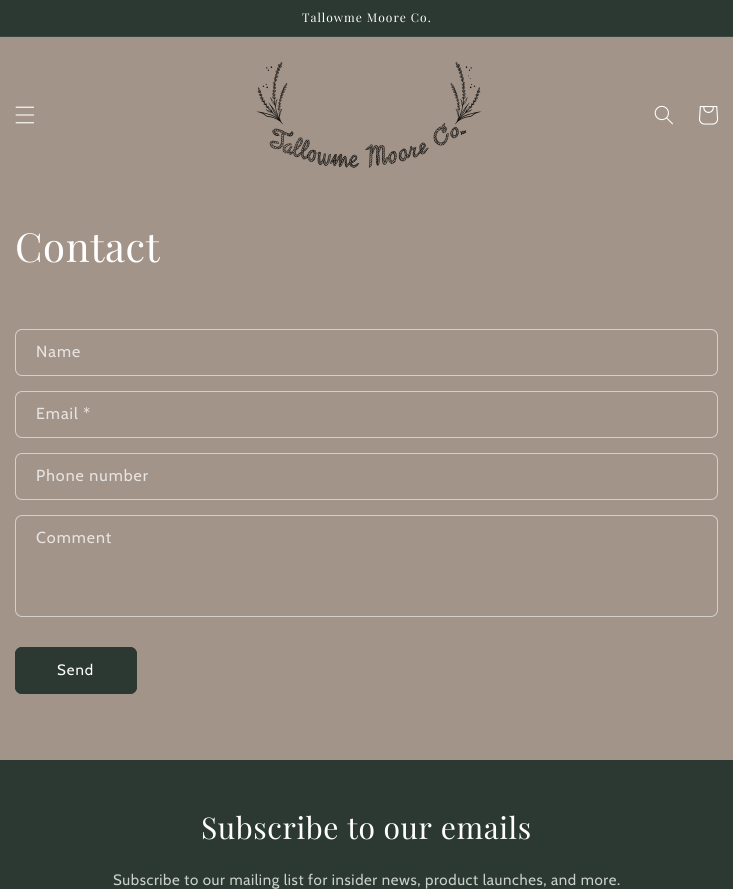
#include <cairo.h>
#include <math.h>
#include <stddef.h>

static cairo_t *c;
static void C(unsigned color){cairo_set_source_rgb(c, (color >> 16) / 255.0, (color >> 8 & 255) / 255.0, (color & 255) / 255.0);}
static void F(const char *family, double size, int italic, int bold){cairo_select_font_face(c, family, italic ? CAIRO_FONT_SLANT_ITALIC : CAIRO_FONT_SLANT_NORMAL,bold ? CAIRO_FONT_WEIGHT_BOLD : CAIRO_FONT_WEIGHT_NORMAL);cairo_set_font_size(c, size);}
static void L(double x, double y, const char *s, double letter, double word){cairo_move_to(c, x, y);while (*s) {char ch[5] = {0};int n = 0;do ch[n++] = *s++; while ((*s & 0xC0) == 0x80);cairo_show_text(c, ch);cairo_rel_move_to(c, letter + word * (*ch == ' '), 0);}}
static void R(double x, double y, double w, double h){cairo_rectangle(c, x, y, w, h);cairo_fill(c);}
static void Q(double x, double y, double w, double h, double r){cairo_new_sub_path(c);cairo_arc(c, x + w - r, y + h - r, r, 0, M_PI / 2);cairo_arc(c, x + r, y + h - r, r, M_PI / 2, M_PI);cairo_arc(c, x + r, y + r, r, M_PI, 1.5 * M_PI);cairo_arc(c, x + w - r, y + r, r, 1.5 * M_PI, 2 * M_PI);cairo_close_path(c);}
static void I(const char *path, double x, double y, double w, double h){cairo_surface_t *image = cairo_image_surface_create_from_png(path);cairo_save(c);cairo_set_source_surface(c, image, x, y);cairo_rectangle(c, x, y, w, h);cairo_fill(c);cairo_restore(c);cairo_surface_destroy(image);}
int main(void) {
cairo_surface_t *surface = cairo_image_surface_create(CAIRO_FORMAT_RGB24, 733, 889);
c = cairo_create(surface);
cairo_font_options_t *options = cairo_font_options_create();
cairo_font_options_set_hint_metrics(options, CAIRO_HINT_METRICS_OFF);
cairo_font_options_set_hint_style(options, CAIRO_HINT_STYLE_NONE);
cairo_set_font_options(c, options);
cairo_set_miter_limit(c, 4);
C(0xa29489);
cairo_paint(c);
C(0x2b3932);
R(0,0,733,36);
C(0x3c4942);
R(0,36,733,1);
F("Playfair Display",12,0,0);
C(0xffffff);
L(302,22,"Tallowme Moore Co.",1,0);
I("1.png",15,106,20,18);
I("2.png",256,62,226,106);
I("3.png",654,105,19,20);
I("4.png",699,106,20,19);
F("Playfair Display",40,0,0);
L(15,262,"Contact",.6,0);
Q(15.5,329.5,702,46,6.5);
C(0xd5cfca);
cairo_set_line_width(c,1);
cairo_stroke(c);
F("Cabin",16,0,0);
C(0xe8e4e2);
L(36,357,"Name",1,0);
Q(15.5,391.5,702,46,6.5);
C(0xd5cfca);
cairo_stroke(c);
C(0xe8e4e2);
L(36,419,"Email *",1,0);
Q(15.5,453.5,702,46,6.5);
C(0xd5cfca);
cairo_stroke(c);
C(0xe8e4e2);
L(36,481,"Phone number",1,0);
Q(15.5,515.5,702,101,6.5);
C(0xd5cfca);
cairo_stroke(c);
C(0xe8e4e2);
L(36,543,"Comment",1,0);
C(0x2b3932);
Q(15,647,122,47,7);
cairo_fill(c);
Q(15.5,647.5,121,46,6.5);
cairo_stroke(c);
F("Cabin",15,0,0);
C(0xffffff);
L(57,675,"Send",1,0);
C(0x2b3932);
R(0,760,733,129);
F("Playfair Display",30,0,0);
C(0xffffff);
L(201,839,"Subscribe to our emails",.6,0);
F("Cabin",15,0,0);
C(0xcacecc);
L(113,885,"Subscribe to our mailing list for insider news, product launches, and more.",.6,0);
cairo_surface_write_to_png(surface, "o.png");
cairo_font_options_destroy(options);
cairo_destroy(c);
cairo_surface_destroy(surface);
return 0;
}
